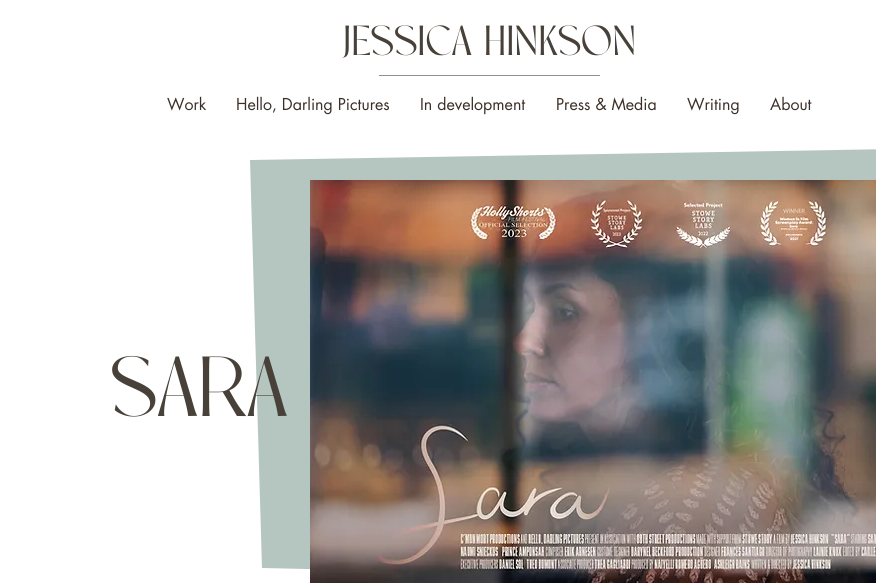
#include <cairo.h>
#include <math.h>
#include <stddef.h>

static cairo_t *c;
static void C(unsigned color){cairo_set_source_rgb(c, (color >> 16) / 255.0, (color >> 8 & 255) / 255.0, (color & 255) / 255.0);}
static void F(const char *family, double size, int italic, int bold){cairo_select_font_face(c, family, italic ? CAIRO_FONT_SLANT_ITALIC : CAIRO_FONT_SLANT_NORMAL,bold ? CAIRO_FONT_WEIGHT_BOLD : CAIRO_FONT_WEIGHT_NORMAL);cairo_set_font_size(c, size);}
static void T(double x, double y, const char *s){cairo_move_to(c, x, y);cairo_show_text(c, s);}
static void R(double x, double y, double w, double h){cairo_rectangle(c, x, y, w, h);cairo_fill(c);}
static void I(const char *path, double x, double y, double w, double h){cairo_surface_t *image = cairo_image_surface_create_from_png(path);cairo_save(c);cairo_set_source_surface(c, image, x, y);cairo_rectangle(c, x, y, w, h);cairo_fill(c);cairo_restore(c);cairo_surface_destroy(image);}
int main(void) {
cairo_surface_t *surface = cairo_image_surface_create(CAIRO_FORMAT_RGB24, 876, 583);
c = cairo_create(surface);
cairo_font_options_t *options = cairo_font_options_create();
cairo_font_options_set_hint_metrics(options, CAIRO_HINT_METRICS_OFF);
cairo_font_options_set_hint_style(options, CAIRO_HINT_STYLE_NONE);
cairo_set_font_options(c, options);
cairo_set_miter_limit(c, 4);
C(0xffffff);
cairo_paint(c);
F("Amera",42,0,0);
C(0x48413a);
T(343,55,"Jessica Hinkson");
C(0x909090);
R(379,75,221,1);
F("futura",16,0,0);
C(0x3b2f29);
T(167,110,"Work");
T(236,110,"Hello, Darling Pictures");
T(420,110,"In development");
T(556,110,"Press & Media");
T(687,110,"Writing");
T(770,110,"About");
C(0xb5c5bf);
cairo_new_path(c);
cairo_move_to(c,250,160);
cairo_line_to(c,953,148);
cairo_line_to(c,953,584);
cairo_line_to(c,262,568);
cairo_close_path(c);
cairo_fill(c);
F("Amera",85,0,0);
C(0x48413a);
T(110,416,"Sara");
I("1.png",310,180,566,403);
cairo_surface_write_to_png(surface, "o.png");
cairo_font_options_destroy(options);
cairo_destroy(c);
cairo_surface_destroy(surface);
return 0;
}
